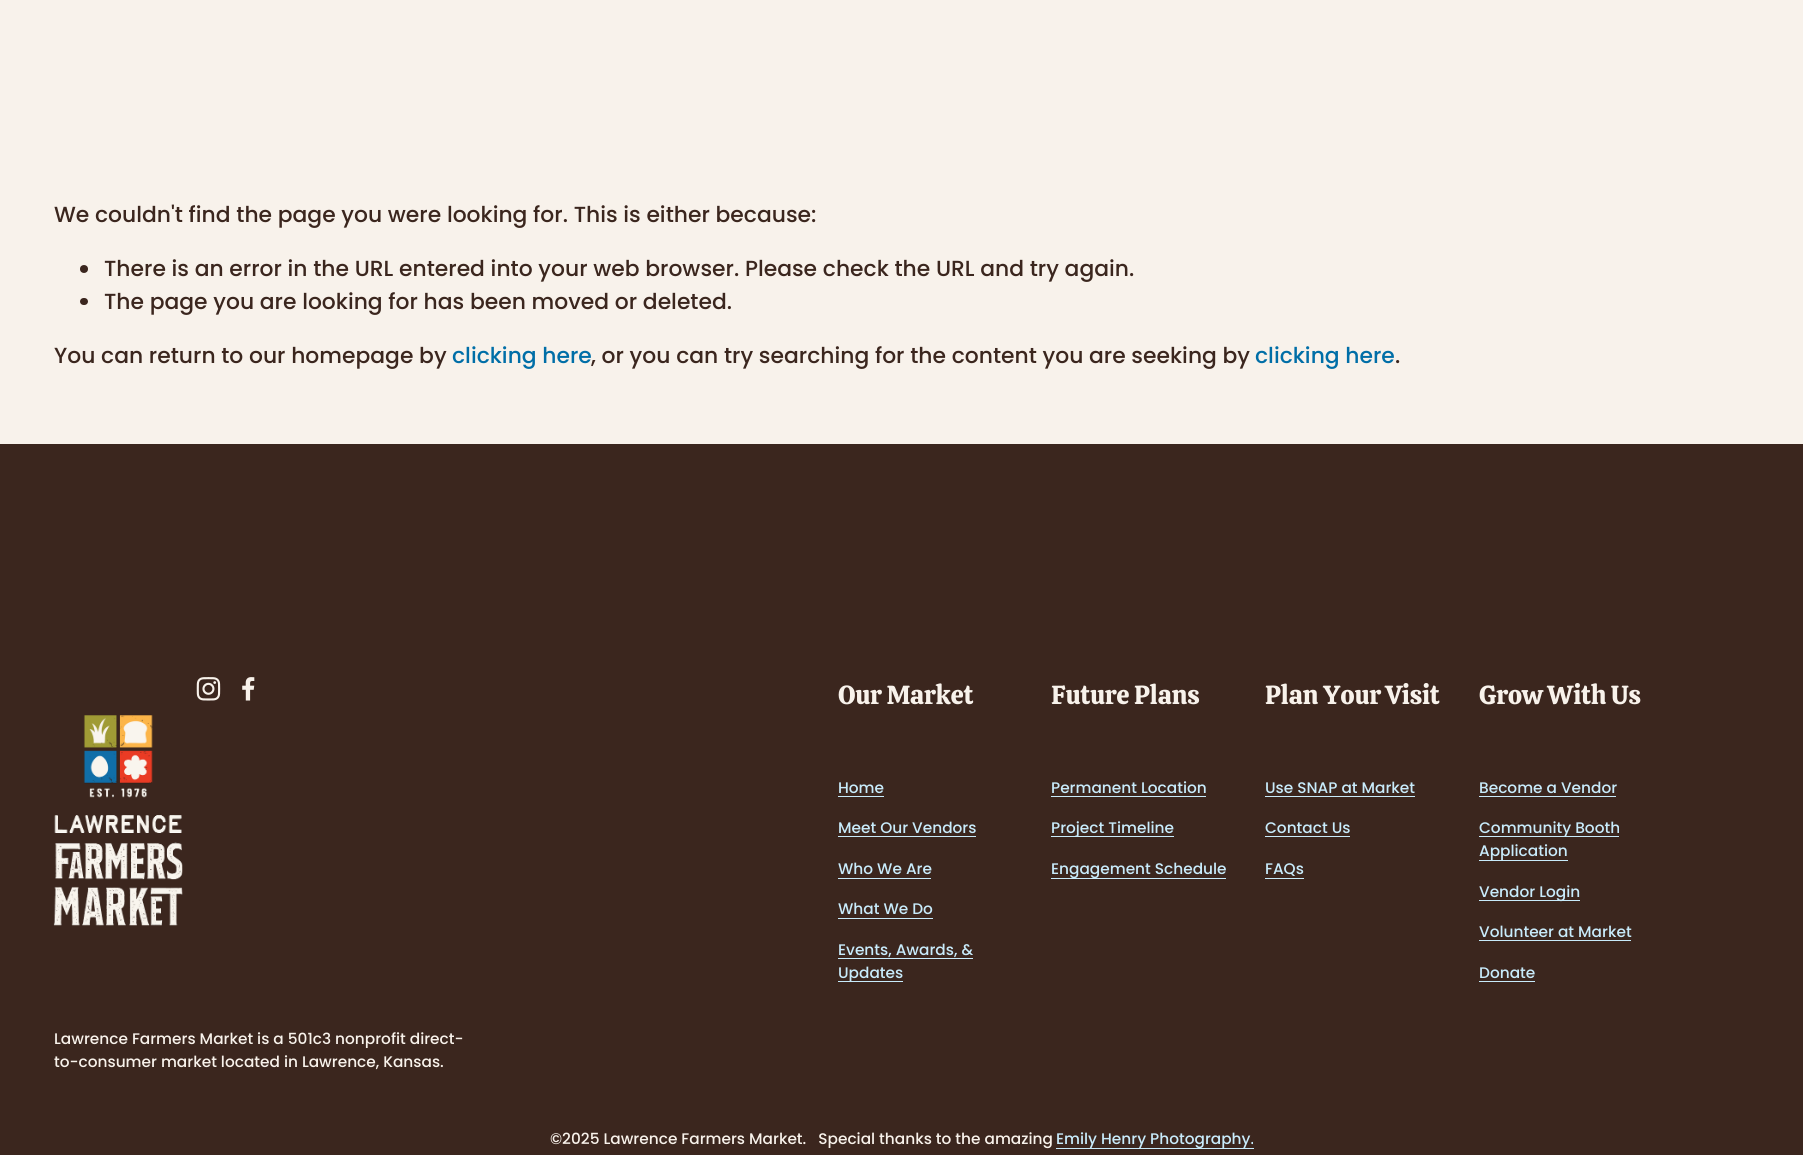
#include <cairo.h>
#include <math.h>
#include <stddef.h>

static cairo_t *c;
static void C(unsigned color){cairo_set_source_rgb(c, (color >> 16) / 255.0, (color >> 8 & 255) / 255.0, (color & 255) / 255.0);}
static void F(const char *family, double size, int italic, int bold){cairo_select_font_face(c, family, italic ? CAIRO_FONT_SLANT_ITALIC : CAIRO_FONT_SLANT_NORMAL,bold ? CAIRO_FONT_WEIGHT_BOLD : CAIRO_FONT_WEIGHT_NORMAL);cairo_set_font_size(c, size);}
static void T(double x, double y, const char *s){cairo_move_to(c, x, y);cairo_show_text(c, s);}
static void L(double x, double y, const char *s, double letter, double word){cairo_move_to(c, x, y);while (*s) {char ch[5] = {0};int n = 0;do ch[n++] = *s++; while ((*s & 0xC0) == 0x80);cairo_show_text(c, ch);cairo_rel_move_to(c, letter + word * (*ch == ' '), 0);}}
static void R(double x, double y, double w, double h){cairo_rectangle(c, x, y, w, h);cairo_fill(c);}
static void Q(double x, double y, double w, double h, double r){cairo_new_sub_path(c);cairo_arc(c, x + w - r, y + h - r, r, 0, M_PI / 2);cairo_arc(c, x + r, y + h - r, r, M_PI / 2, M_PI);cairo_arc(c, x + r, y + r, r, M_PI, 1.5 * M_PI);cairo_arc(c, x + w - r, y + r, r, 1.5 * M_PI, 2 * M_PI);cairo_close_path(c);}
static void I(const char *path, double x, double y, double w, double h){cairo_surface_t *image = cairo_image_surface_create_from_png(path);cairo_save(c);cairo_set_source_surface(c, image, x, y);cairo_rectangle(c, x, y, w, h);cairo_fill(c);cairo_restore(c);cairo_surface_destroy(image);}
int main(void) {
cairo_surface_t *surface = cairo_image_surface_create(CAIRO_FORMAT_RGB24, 1803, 1155);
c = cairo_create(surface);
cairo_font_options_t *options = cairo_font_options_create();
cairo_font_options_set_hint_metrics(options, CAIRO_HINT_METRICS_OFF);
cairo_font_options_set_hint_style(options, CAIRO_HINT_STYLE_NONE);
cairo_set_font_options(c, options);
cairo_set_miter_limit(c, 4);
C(0xf8f2eb);
cairo_paint(c);
F("Poppins Medium",21.85,0,0);
C(0x3b261e);
T(54,222,"We couldn't find the page you were looking for. This is either because:");
cairo_new_path(c);
cairo_arc(c,84,269,4,0,2 * M_PI);
cairo_fill(c);
T(104,276,"There is an error in the URL entered into your web browser. Please check the URL and try again.");
Q(80,298,8,7,3.5);
cairo_fill(c);
T(104,309,"The page you are looking for has been moved or deleted.");
T(54,363,"You can return to our homepage by");
C(0x006ea7);
T(452,363,"clicking here");
C(0x3b261e);
T(591,363,", or you can try searching for the content you are seeking by");
C(0x006ea7);
T(1255,363,"clicking here");
C(0x3b261e);
T(1395,363,".");
R(0,444,1803,711);
I("1.png",196,677,25,24);
I("2.png",242,677,13,24);
F("Calistoga",26.25,0,0);
C(0xf8f2eb);
L(838,704,"Our Market",-.25,0);
L(1051,704,"Future Plans",-.25,0);
L(1265,704,"Plan Your Visit",-.25,0);
L(1479,704,"Grow With Us",-.25,0);
I("3.png",53,715,130,211);
F("Poppins Medium",15.35,0,0);
C(0xc8ebfb);
T(838,793,"Home");
R(838,796,46,1);
T(838,833,"Meet Our Vendors");
R(838,836,138,1);
T(838,874,"Who We Are");
R(838,878,93,1);
T(838,914,"What We Do");
R(838,918,95,1);
T(838,955,"Events, Awards, &");
R(838,958,135,1);
R(838,981,65,1);
T(838,978,"Updates");
T(1051,793,"Permanent Location");
R(1051,796,155,1);
R(1051,836,123,1);
T(1051,833,"Project Timeline");
R(1051,878,175,1);
T(1051,874,"Engagement Schedule");
T(1265,793,"Use SNAP at Market");
R(1265,796,150,1);
T(1265,833,"Contact Us");
R(1265,836,85,1);
T(1265,874,"FAQs");
R(1265,878,39,1);
T(1479,793,"Become a Vendor");
R(1479,796,137,1);
R(1479,836,140,1);
T(1479,833,"Community Booth");
T(1479,856,"Application");
R(1479,860,89,1);
R(1479,900,101,1);
T(1479,897,"Vendor Login");
T(1479,937,"Volunteer at Market");
R(1479,940,152,1);
T(1479,978,"Donate");
R(1479,981,56,1);
C(0xf8f2eb);
T(54,1044,"Lawrence Farmers Market is a 501c3 nonprofit direct-");
T(54,1067,"to-consumer market located in Lawrence, Kansas.");
T(550,1144,"©2025 Lawrence Farmers Market.   Special thanks to the amazing");
C(0xc8ebfb);
R(1056,1148,198,1);
T(1056,1144,"Emily Henry Photography.");
cairo_surface_write_to_png(surface, "o.png");
cairo_font_options_destroy(options);
cairo_destroy(c);
cairo_surface_destroy(surface);
return 0;
}
